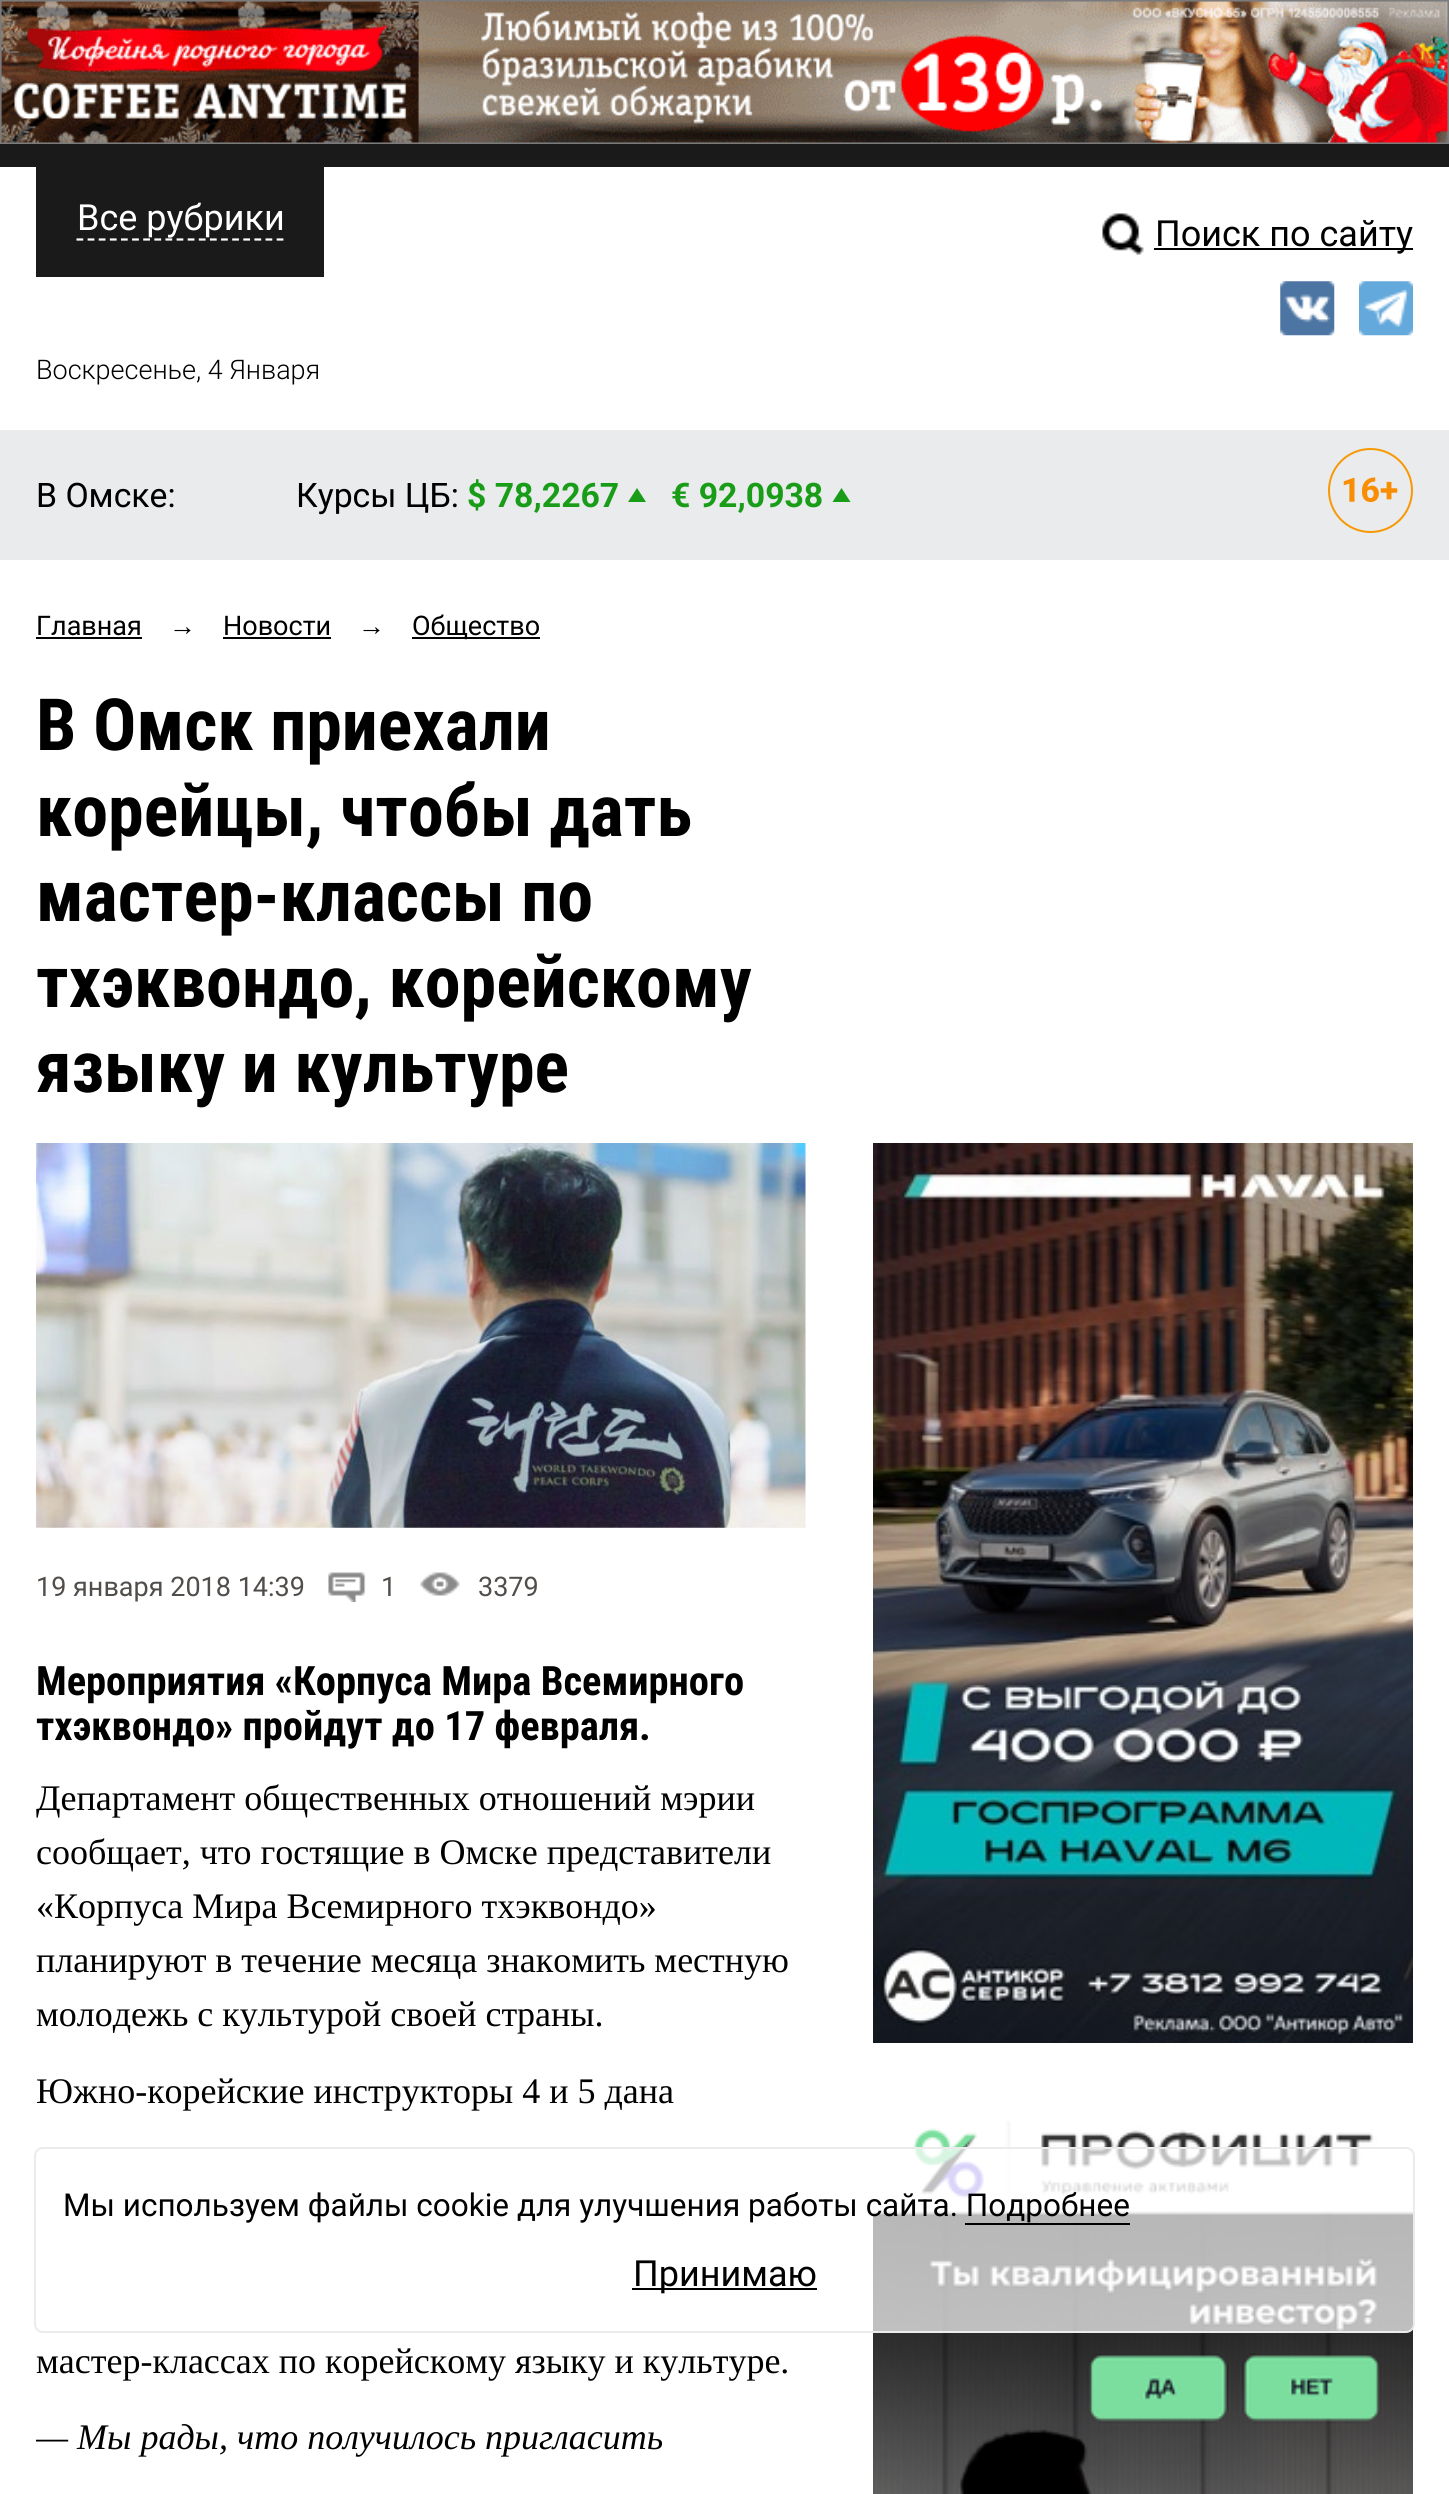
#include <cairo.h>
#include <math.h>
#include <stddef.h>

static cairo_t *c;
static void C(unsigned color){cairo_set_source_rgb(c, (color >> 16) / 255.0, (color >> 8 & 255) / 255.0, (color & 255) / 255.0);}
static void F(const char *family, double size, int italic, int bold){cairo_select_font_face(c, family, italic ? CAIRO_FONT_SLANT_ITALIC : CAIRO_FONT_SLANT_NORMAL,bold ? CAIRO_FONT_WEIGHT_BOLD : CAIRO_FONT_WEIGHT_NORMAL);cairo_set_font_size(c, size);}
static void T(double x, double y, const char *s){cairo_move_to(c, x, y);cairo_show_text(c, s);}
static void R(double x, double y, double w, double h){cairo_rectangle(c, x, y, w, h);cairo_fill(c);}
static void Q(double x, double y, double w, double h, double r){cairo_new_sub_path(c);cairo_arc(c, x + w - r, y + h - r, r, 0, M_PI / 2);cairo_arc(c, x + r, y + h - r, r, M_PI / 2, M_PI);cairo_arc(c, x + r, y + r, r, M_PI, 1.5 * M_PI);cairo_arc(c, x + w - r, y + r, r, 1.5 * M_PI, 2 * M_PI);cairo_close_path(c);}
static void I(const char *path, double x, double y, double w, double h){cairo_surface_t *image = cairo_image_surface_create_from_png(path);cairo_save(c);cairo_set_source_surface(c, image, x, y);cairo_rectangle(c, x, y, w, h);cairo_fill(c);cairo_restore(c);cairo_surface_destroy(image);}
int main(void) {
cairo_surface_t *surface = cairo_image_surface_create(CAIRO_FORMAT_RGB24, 1449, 2494);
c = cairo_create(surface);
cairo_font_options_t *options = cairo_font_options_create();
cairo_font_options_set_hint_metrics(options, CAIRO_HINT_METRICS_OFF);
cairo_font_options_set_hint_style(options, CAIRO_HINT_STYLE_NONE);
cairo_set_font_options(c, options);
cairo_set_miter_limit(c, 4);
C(0xffffff);
cairo_paint(c);
I("1.png",0,0,1449,144);
C(0x1a1a1a);
R(0,144,1449,23);
R(36,167,288,110);
F("Roboto",36,0,0);
C(0xffffff);
T(77,230,"Все рубрики");
cairo_new_path(c);
cairo_move_to(c,76.5,239.5);
cairo_line_to(c,283.5,239.5);
cairo_set_line_width(c,2.2);
cairo_set_dash(c,(double[]){6.75,4.37},2,0);
cairo_stroke(c);
I("2.png",1102,213,42,42);
C(0x000000);
R(1154,248,259,2);
T(1155,246,"Поиск по сайту");
I("3.png",1280,281,55,55);
I("4.png",1359,281,54,55);
F("Roboto Light",27,0,0);
T(36,379,"Воскресенье, 4 Января");
C(0xe9ebec);
R(0,430,1449,130);
F("Roboto",33.75,0,0);
C(0x000000);
T(36,507,"В Омске:");
T(296,507,"Курсы ЦБ:");
F("Roboto",33.75,0,1);
C(0x199d19);
T(467,507,"$ 78,2267");
cairo_new_path(c);
cairo_move_to(c,646,502);
cairo_line_to(c,628,502);
cairo_line_to(c,637,488);
cairo_close_path(c);
cairo_fill(c);
T(671,507,"€ 92,0938");
cairo_new_path(c);
cairo_move_to(c,850.5,502);
cairo_line_to(c,832.5,502);
cairo_line_to(c,841.5,488);
cairo_close_path(c);
cairo_fill(c);
I("5.png",1328,448,85,85);
F("Roboto",27,0,0);
C(0x000000);
T(36,635,"Главная");
R(36,637,106,2);
F("Liberation Sans",27,0,0);
T(169,635,"→");
F("Roboto",27,0,0);
T(223,635,"Новости");
R(223,637,108,2);
F("Liberation Sans",27,0,0);
T(358,635,"→");
R(412,637,128,2);
F("Roboto",27,0,0);
T(412,635,"Общество");
F("Roboto Condensed",72,0,1);
T(36,750,"В Омск приехали");
T(36,836,"корейцы, чтобы дать");
T(36,921,"мастер-классы по");
T(36,1007,"тхэквондо, корейскому");
T(36,1092,"языку и культуре");
I("6.png",36,1143,770,385);
F("Roboto",27,0,0);
C(0x514d4a);
T(36,1596,"19 января 2018 14:39");
I("7.png",328,1572,38,30);
T(381,1596,"1");
I("8.png",420,1572,40,24);
T(478,1596,"3379");
F("Roboto Condensed",40.5,0,1);
C(0x000000);
T(36,1695,"Мероприятия «Корпуса Мира Всемирного");
T(36,1740,"тхэквондо» пройдут до 17 февраля.");
F("Liberation Serif",36,0,0);
T(36,1810,"Департамент общественных отношений мэрии");
T(36,1864,"сообщает, что гостящие в Омске представители");
T(36,1918,"«Корпуса Мира Всемирного тхэквондо»");
T(36,1972,"планируют в течение месяца знакомить местную");
T(36,2026,"молодежь с культурой своей страны.");
T(36,2103,"Южно-корейские инструкторы 4 и 5 дана");
T(36,2373,"мастер-классах по корейскому языку и культуре.");
cairo_save(c);
cairo_rectangle(c,36,1143,1377,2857);
cairo_clip(c);
F("Liberation Serif",36,1,0);
T(36,2449,"— Мы рады, что получилось пригласить");
cairo_restore(c);
I("9.png",873,1143,540,900);
I("10.png",873,2121,540,373);
cairo_set_source_rgba(c,1,1,1,0.7);
Q(35,2148,1379,184,8);
cairo_fill_preserve(c);
C(0xebebeb);
cairo_set_line_width(c,2);
cairo_set_dash(c,NULL,0,0);
cairo_stroke(c);
F("Roboto",31.5,0,0);
C(0x000000);
T(63,2216,"Мы используем файлы cookie для улучшения работы сайта. Подробнее");
R(965,2223,165,2);
R(632,2288,185,2);
F("Roboto",36,0,0);
T(633,2286,"Принимаю");
cairo_surface_write_to_png(surface, "o.png");
cairo_font_options_destroy(options);
cairo_destroy(c);
cairo_surface_destroy(surface);
return 0;
}
